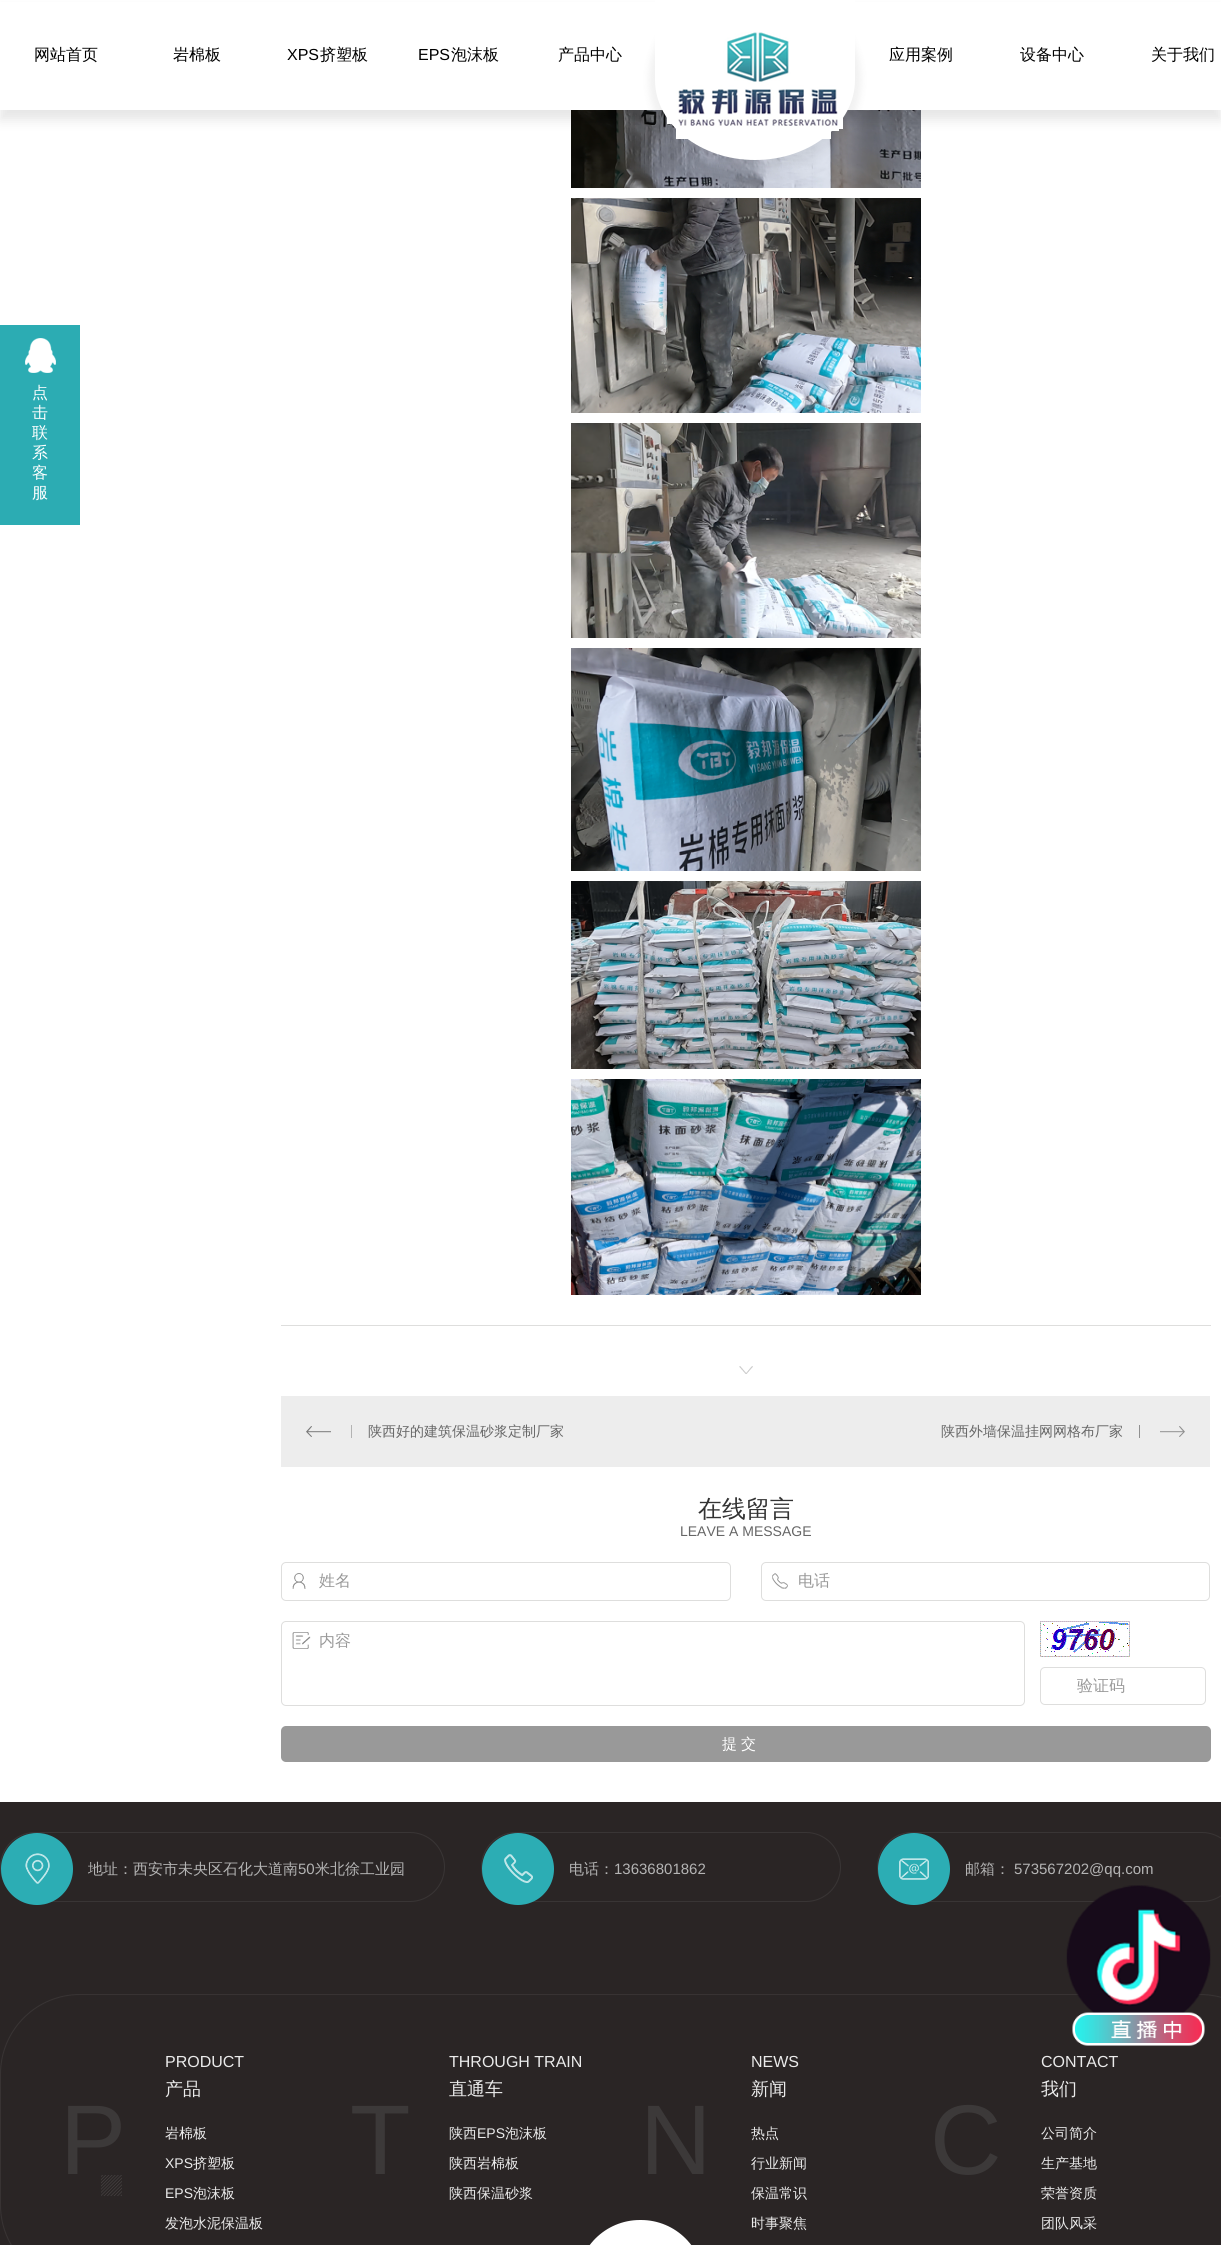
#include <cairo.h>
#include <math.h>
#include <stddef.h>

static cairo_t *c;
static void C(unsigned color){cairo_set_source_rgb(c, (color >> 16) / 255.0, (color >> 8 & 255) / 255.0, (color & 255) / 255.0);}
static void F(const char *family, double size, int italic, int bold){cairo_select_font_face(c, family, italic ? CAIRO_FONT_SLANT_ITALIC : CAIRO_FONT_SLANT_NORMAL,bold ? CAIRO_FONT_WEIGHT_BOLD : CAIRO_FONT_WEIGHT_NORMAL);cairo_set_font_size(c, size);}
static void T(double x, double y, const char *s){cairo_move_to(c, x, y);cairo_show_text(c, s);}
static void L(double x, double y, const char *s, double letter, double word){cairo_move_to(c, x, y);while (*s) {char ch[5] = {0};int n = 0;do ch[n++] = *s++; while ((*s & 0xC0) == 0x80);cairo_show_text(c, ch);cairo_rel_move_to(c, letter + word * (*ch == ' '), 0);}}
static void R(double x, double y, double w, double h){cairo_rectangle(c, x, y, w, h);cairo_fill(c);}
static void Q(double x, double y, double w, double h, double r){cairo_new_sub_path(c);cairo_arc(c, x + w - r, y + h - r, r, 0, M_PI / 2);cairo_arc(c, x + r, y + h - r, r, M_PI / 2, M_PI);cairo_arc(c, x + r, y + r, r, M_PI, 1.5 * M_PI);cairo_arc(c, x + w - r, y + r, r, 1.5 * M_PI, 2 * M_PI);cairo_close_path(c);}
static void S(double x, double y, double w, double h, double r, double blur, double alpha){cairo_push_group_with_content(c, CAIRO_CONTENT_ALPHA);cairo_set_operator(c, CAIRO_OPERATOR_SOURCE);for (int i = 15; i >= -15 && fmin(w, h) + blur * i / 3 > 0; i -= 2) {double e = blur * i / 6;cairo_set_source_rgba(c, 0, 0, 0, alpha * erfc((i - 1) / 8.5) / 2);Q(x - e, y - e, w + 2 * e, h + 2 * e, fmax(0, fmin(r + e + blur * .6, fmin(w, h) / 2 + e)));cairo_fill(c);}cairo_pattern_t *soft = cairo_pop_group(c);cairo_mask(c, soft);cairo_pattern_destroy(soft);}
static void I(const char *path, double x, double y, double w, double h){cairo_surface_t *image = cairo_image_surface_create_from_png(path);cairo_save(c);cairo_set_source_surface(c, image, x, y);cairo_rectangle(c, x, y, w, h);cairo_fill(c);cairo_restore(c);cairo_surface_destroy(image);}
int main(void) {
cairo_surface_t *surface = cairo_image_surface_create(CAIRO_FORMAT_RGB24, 1221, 2245);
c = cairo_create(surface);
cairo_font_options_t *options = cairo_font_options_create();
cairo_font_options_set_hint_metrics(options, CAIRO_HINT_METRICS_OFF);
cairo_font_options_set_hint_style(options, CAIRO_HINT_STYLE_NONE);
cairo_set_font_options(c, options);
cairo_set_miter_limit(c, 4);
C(0xffffff);
cairo_paint(c);
I("3.png",571,110,350,78);
C(0x000000);
S(0,10,1221,110,0,6,.1);
C(0xffffff);
R(0,2,1221,108);
C(0x000000);
S(649,-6,212,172,86,4,.06);
C(0xffffff);
cairo_new_path(c);
cairo_move_to(c,655,0);
cairo_line_to(c,855,0);
cairo_line_to(c,855,80);
cairo_curve_to(c,855,124,810,160,755,160);
cairo_curve_to(c,700,160,655,124,655,80);
cairo_close_path(c);
cairo_fill(c);
I("1.png",667,32,176,107);
F("WenQuanYi Zen Hei Medium",16,0,0);
C(0x000000);
T(34,60,"网站首页");
T(173,60,"岩棉板");
F("Liberation Sans",16,0,0);
T(287,60,"XPS");
F("WenQuanYi Zen Hei Medium",16,0,0);
T(320,60,"挤塑板");
F("Liberation Sans",16,0,0);
T(418,60,"EPS");
F("WenQuanYi Zen Hei Medium",16,0,0);
T(451,60,"泡沫板");
T(558,60,"产品中心");
T(889,60,"应用案例");
T(1020,60,"设备中心");
T(1151,60,"关于我们");
C(0x2cacb3);
R(0,325,80,200);
I("2.png",25,338,31,35);
C(0xffffff);
T(32,398,"点");
T(32,418,"击");
T(32,438,"联");
T(32,458,"系");
T(32,478,"客");
T(32,498,"服");
C(0xdededd);
R(281,1325,930,1);
I("4.png",571,198,350,215);
I("5.png",571,423,350,215);
I("6.png",571,648,350,223);
I("7.png",571,881,350,188);
I("8.png",571,1079,350,216);
I("9.png",739,1366,14,8);
C(0xededed);
R(281,1396,929,71);
I("10.png",306,1425,46,13);
F("WenQuanYi Zen Hei Medium",14,0,0);
C(0x666666);
T(368,1436,"陕西好的建筑保温砂浆定制厂家");
I("11.png",1139,1425,46,13);
T(941,1436,"陕西外墙保温挂网网格布厂家");
F("WenQuanYi Zen Hei Medium",24,0,0);
C(0x333333);
T(698,1517,"在线留言");
F("Liberation Sans",14,0,0);
C(0x666666);
T(680,1536,"LEAVE A MESSAGE");
I("12.png",292,1573,14,16);
Q(281.5,1562.5,449,38,4.5);
C(0xdededd);
cairo_set_line_width(c,1);
cairo_stroke(c);
F("WenQuanYi Zen Hei Medium",16,0,0);
C(0x999999);
T(319,1586,"姓名");
I("13.png",772,1573,16,16);
Q(761.5,1562.5,448,38,4.5);
C(0xdededd);
cairo_stroke(c);
C(0x999999);
T(798,1586,"电话");
I("14.png",292,1632,19,17);
Q(281.5,1621.5,743,84,4.5);
C(0xdededd);
cairo_stroke(c);
C(0x999999);
T(319,1646,"内容");
I("15.png",1040,1621,90,36);
Q(1040.5,1667.5,165,37,4.5);
C(0xdededd);
cairo_stroke(c);
C(0x999999);
T(1077,1691,"验证码");
Q(281,1726,930,36,5);
cairo_fill(c);
F("WenQuanYi Zen Hei Medium",15,0,0);
C(0xffffff);
L(722,1749,"提交",4,0);
C(0x2a2525);
R(0,1802,1221,443);
Q(.5,1832.5,444,69,34.5);
C(0x393535);
cairo_stroke(c);
I("16.png",1,1833,72,72);
C(0xb4b4b4);
T(88,1874,"地址：西安市未央区石化大道南");
F("Liberation Sans",15,0,0);
T(298,1874,"50");
F("WenQuanYi Zen Hei Medium",15,0,0);
T(315,1874,"米北徐工业园");
Q(481.5,1832.5,359,69,34.5);
C(0x393535);
cairo_stroke(c);
I("17.png",482,1833,72,72);
C(0xb4b4b4);
T(569,1874,"电话：");
F("Liberation Sans",15,0,0);
T(614,1874,"13636801862");
Q(877.5,1832.5,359,69,34.5);
C(0x393535);
cairo_stroke(c);
I("18.png",878,1833,72,72);
F("WenQuanYi Zen Hei Medium",15,0,0);
C(0xb4b4b4);
T(965,1874,"邮箱：");
F("Liberation Sans",15,0,0);
T(1014,1874,"573567202@qq.com");
I("19.png",0,1994,1221,251);
F("Liberation Sans",99,0,0);
C(0x3c3939);
T(60,2174,"P");
F("Liberation Sans",16,0,0);
C(0xebebeb);
T(165,2067,"PRODUCT");
F("WenQuanYi Zen Hei Medium",18,0,0);
T(165,2095,"产品");
F("WenQuanYi Zen Hei Medium",14,0,0);
T(165,2138,"岩棉板");
F("Liberation Sans",14,0,0);
T(165,2168,"XPS");
F("WenQuanYi Zen Hei Medium",14,0,0);
T(193,2168,"挤塑板");
F("Liberation Sans",14,0,0);
T(165,2198,"EPS");
F("WenQuanYi Zen Hei Medium",14,0,0);
T(193,2198,"泡沫板");
T(165,2228,"发泡水泥保温板");
F("Liberation Sans",99,0,0);
C(0x3c3939);
T(350,2174,"T");
F("Liberation Sans",16,0,0);
C(0xebebeb);
T(449,2067,"THROUGH TRAIN");
F("WenQuanYi Zen Hei Medium",18,0,0);
T(449,2095,"直通车");
F("WenQuanYi Zen Hei Medium",14,0,0);
T(449,2138,"陕西");
F("Liberation Sans",14,0,0);
T(477,2138,"EPS");
F("WenQuanYi Zen Hei Medium",14,0,0);
T(505,2138,"泡沫板");
T(449,2168,"陕西岩棉板");
T(449,2198,"陕西保温砂浆");
F("Liberation Sans",99,0,0);
C(0x3c3939);
T(640,2174,"N");
F("Liberation Sans",16,0,0);
C(0xebebeb);
T(751,2067,"NEWS");
F("WenQuanYi Zen Hei Medium",18,0,0);
T(751,2095,"新闻");
F("WenQuanYi Zen Hei Medium",14,0,0);
T(751,2138,"热点");
T(751,2168,"行业新闻");
T(751,2198,"保温常识");
T(751,2228,"时事聚焦");
F("Liberation Sans",99,0,0);
C(0x3c3939);
T(930,2174,"C");
F("Liberation Sans",16,0,0);
C(0xebebeb);
T(1041,2067,"CONTACT");
F("WenQuanYi Zen Hei Medium",18,0,0);
T(1041,2095,"我们");
F("WenQuanYi Zen Hei Medium",14,0,0);
T(1041,2138,"公司简介");
T(1041,2168,"生产基地");
T(1041,2198,"荣誉资质");
T(1041,2228,"团队风采");
I("20.png",589,2220,103,25);
I("21.png",1066,1885,145,161);
cairo_surface_write_to_png(surface, "o.png");
cairo_font_options_destroy(options);
cairo_destroy(c);
cairo_surface_destroy(surface);
return 0;
}
